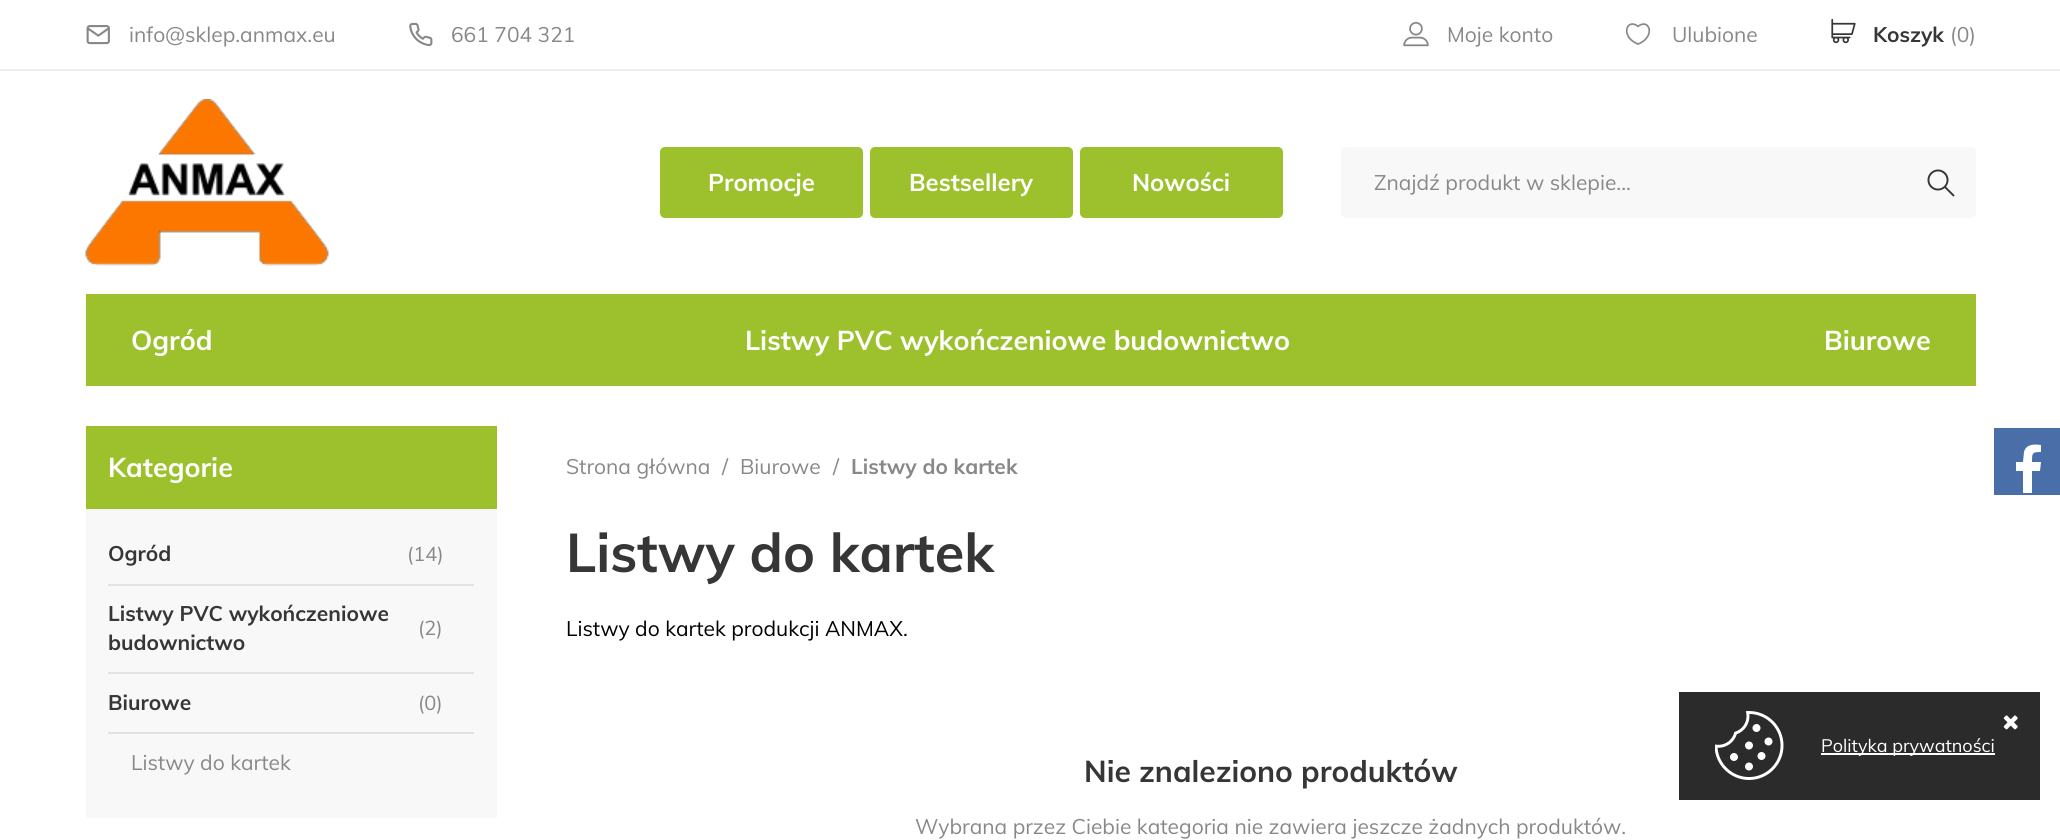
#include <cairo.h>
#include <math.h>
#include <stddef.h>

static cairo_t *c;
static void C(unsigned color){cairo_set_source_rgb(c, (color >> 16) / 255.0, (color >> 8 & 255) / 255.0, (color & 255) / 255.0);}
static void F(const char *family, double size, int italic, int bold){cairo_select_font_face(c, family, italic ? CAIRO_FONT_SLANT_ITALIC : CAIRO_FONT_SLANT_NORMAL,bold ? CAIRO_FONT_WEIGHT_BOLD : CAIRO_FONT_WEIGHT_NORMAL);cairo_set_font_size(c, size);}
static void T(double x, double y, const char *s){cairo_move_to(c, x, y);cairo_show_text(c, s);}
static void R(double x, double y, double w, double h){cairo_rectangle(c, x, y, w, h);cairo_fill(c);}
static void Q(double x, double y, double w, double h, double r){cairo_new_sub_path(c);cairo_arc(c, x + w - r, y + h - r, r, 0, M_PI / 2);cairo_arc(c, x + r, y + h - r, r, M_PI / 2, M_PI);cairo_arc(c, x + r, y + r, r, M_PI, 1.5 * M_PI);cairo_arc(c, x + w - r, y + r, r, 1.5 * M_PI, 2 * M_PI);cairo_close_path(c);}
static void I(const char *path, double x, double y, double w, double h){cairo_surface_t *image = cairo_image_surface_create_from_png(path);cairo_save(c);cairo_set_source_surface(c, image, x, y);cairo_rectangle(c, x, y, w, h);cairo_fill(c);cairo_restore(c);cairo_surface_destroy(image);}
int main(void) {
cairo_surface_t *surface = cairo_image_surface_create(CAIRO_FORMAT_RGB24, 2060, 840);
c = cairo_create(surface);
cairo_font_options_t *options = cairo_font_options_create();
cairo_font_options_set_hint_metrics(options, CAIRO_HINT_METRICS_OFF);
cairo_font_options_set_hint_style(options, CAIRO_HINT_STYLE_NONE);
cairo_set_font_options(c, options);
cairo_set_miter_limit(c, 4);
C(0xffffff);
cairo_paint(c);
I("1.png",86,25,24,20);
F("Muli",21,0,0);
C(0x888888);
T(129,42,"info@sklep.anmax.eu");
I("2.png",409,22,24,25);
T(451,42,"661 704 321");
I("3.png",1403,21,26,26);
T(1447,42,"Moje konto");
I("4.png",1625,23,26,22);
T(1672,42,"Ulubione");
I("5.png",1831,18,25,26);
F("Muli",21,0,1);
C(0x363636);
T(1873,42,"Koszyk");
F("Muli",21,0,0);
C(0x888888);
T(1950,42,"(0)");
C(0xededed);
R(0,69,2060,2);
I("6.png",85,99,244,167);
C(0x9dc12d);
Q(660,147,203,71,5);
cairo_fill(c);
F("Muli",24,0,1);
C(0xffffff);
T(708,191,"Promocje");
C(0x9dc12d);
Q(870,147,203,71,5);
cairo_fill(c);
C(0xffffff);
T(909,191,"Bestsellery");
C(0x9dc12d);
Q(1080,147,203,71,5);
cairo_fill(c);
C(0xffffff);
T(1132,191,"Nowości");
C(0xf8f8f8);
Q(1341,147,635,71,5);
cairo_fill(c);
F("Muli",21,0,0);
C(0x888888);
T(1374,190,"Znajdź produkt w sklepie...");
I("7.png",1927,169,28,28);
C(0x9dc12d);
R(86,294,1890,92);
F("Muli",27,0,1);
C(0xffffff);
T(131,350,"Ogród");
T(745,350,"Listwy PVC wykończeniowe budownictwo");
T(1824,350,"Biurowe");
C(0x9dc12d);
R(86,426,411,83);
C(0xffffff);
T(108,477,"Kategorie");
C(0xf8f8f8);
R(86,509,411,309);
C(0xe3e3e3);
R(108,584,366,2);
F("Muli",21,0,1);
C(0x363636);
T(108,561,"Ogród");
F("Muli",20,0,0);
C(0x888888);
T(407,561,"(14)");
C(0xe3e3e3);
R(108,672,366,2);
F("Muli",21,0,1);
C(0x363636);
T(108,621,"Listwy PVC wykończeniowe");
F("Muli",20,0,0);
C(0x888888);
T(418,635,"(2)");
F("Muli",21,0,1);
C(0x363636);
T(108,650,"budownictwo");
C(0xe3e3e3);
R(108,732,366,2);
C(0x363636);
T(108,710,"Biurowe");
F("Muli",20,0,0);
C(0x888888);
T(418,710,"(0)");
F("Muli",21,0,0);
T(131,770,"Listwy do kartek");
T(566,474,"Strona główna");
T(722,474,"/");
T(740,474,"Biurowe");
T(833,474,"/");
F("Muli",21,0,1);
T(851,474,"Listwy do kartek");
F("Muli",54,0,1);
C(0x363636);
T(566,572,"Listwy do kartek");
F("Muli",21,0,0);
C(0x000000);
T(566,636,"Listwy do kartek produkcji ANMAX.");
F("Muli",30,0,1);
C(0x363636);
T(1084,782,"Nie znaleziono produktów");
F("Muli",21,0,0);
C(0x888888);
T(915,834,"Wybrana przez Ciebie kategoria nie zawiera jeszcze żadnych produktów.");
C(0x4a6ea8);
R(1994,428,66,67);
C(0xffffff);
cairo_new_path(c);
cairo_move_to(c,2041,445);
cairo_line_to(c,2041,452);
cairo_curve_to(c,2032,452,2032,453,2032,462);
cairo_line_to(c,2041,462);
cairo_line_to(c,2040,471);
cairo_line_to(c,2032,471);
cairo_line_to(c,2032,493);
cairo_line_to(c,2023,493);
cairo_line_to(c,2023,471);
cairo_line_to(c,2016,471);
cairo_line_to(c,2016,462);
cairo_line_to(c,2023,462);
cairo_line_to(c,2024,452);
cairo_curve_to(c,2026,444,2034,444,2041,445);
cairo_close_path(c);
cairo_fill(c);
C(0x2b2b2b);
R(1679,692,361,108);
I("8.png",1715,711,69,69);
I("9.png",2003,715,15,15);
C(0xffffff);
R(1821,753,174,2);
F("Muli",18,0,0);
T(1821,752,"Polityka prywatności");
cairo_surface_write_to_png(surface, "o.png");
cairo_font_options_destroy(options);
cairo_destroy(c);
cairo_surface_destroy(surface);
return 0;
}
